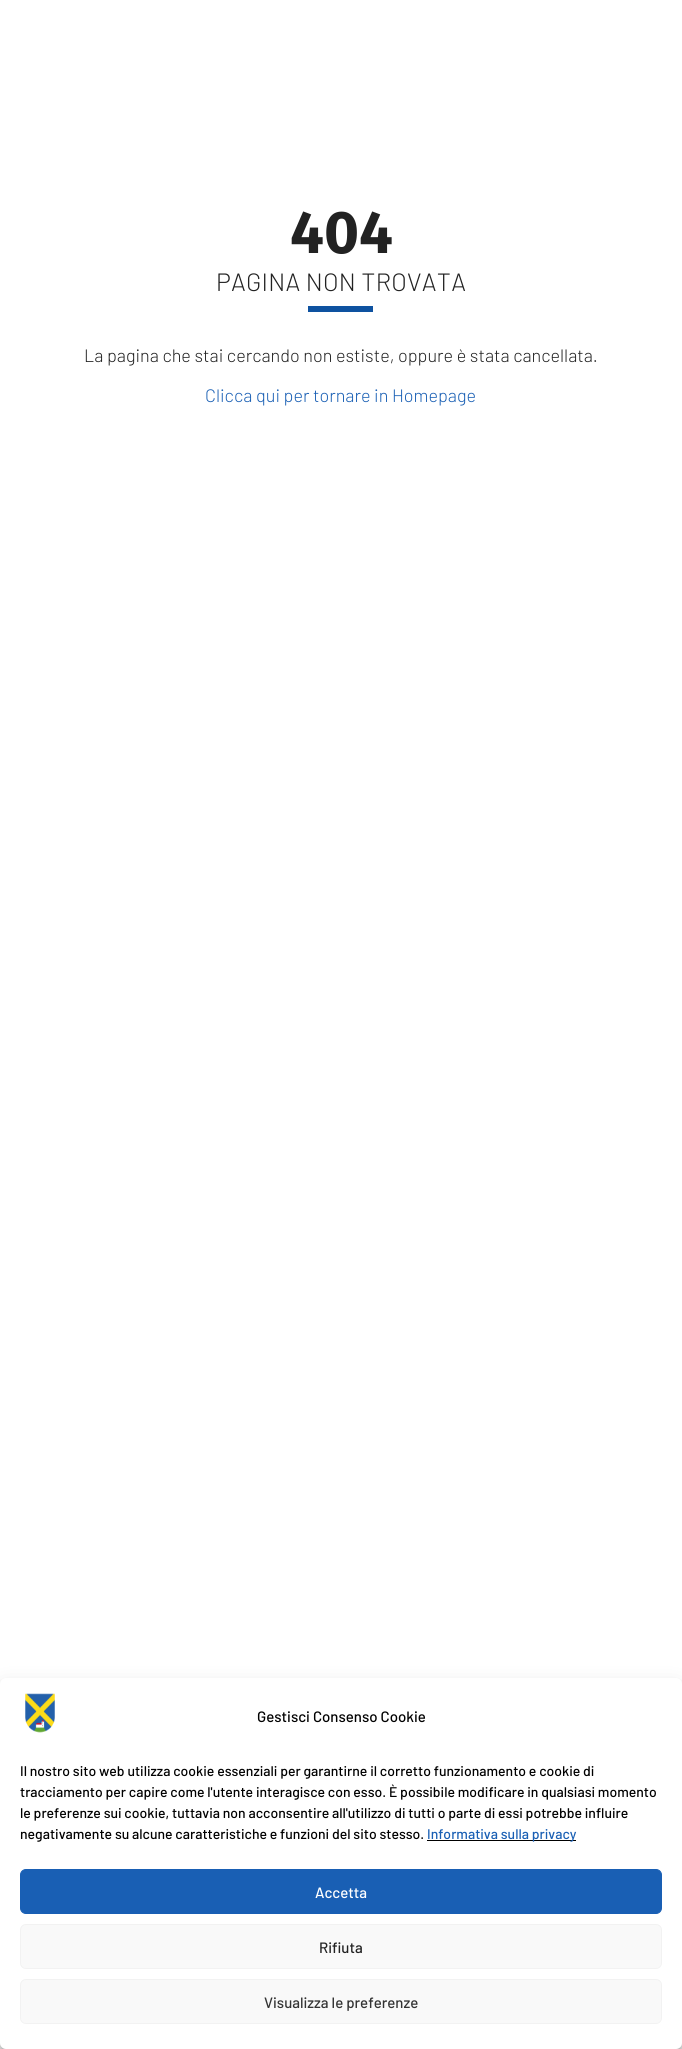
#include <cairo.h>
#include <math.h>
#include <stddef.h>

static cairo_t *c;
static void C(unsigned color){cairo_set_source_rgb(c, (color >> 16) / 255.0, (color >> 8 & 255) / 255.0, (color & 255) / 255.0);}
static void F(const char *family, double size, int italic, int bold){cairo_select_font_face(c, family, italic ? CAIRO_FONT_SLANT_ITALIC : CAIRO_FONT_SLANT_NORMAL,bold ? CAIRO_FONT_WEIGHT_BOLD : CAIRO_FONT_WEIGHT_NORMAL);cairo_set_font_size(c, size);}
static void T(double x, double y, const char *s){cairo_move_to(c, x, y);cairo_show_text(c, s);}
static void L(double x, double y, const char *s, double letter, double word){cairo_move_to(c, x, y);while (*s) {char ch[5] = {0};int n = 0;do ch[n++] = *s++; while ((*s & 0xC0) == 0x80);cairo_show_text(c, ch);cairo_rel_move_to(c, letter + word * (*ch == ' '), 0);}}
static void R(double x, double y, double w, double h){cairo_rectangle(c, x, y, w, h);cairo_fill(c);}
static void Q(double x, double y, double w, double h, double r){cairo_new_sub_path(c);cairo_arc(c, x + w - r, y + h - r, r, 0, M_PI / 2);cairo_arc(c, x + r, y + h - r, r, M_PI / 2, M_PI);cairo_arc(c, x + r, y + r, r, M_PI, 1.5 * M_PI);cairo_arc(c, x + w - r, y + r, r, 1.5 * M_PI, 2 * M_PI);cairo_close_path(c);}
static void S(double x, double y, double w, double h, double r, double blur, double alpha){cairo_push_group_with_content(c, CAIRO_CONTENT_ALPHA);cairo_set_operator(c, CAIRO_OPERATOR_SOURCE);for (int i = 15; i >= -15 && fmin(w, h) + blur * i / 3 > 0; i -= 2) {double e = blur * i / 6;cairo_set_source_rgba(c, 0, 0, 0, alpha * erfc((i - 1) / 8.5) / 2);Q(x - e, y - e, w + 2 * e, h + 2 * e, fmax(0, fmin(r + e + blur * .6, fmin(w, h) / 2 + e)));cairo_fill(c);}cairo_pattern_t *soft = cairo_pop_group(c);cairo_mask(c, soft);cairo_pattern_destroy(soft);}
static void I(const char *path, double x, double y, double w, double h){cairo_surface_t *image = cairo_image_surface_create_from_png(path);cairo_save(c);cairo_set_source_surface(c, image, x, y);cairo_rectangle(c, x, y, w, h);cairo_fill(c);cairo_restore(c);cairo_surface_destroy(image);}
int main(void) {
cairo_surface_t *surface = cairo_image_surface_create(CAIRO_FORMAT_RGB24, 682, 2049);
c = cairo_create(surface);
cairo_font_options_t *options = cairo_font_options_create();
cairo_font_options_set_hint_metrics(options, CAIRO_HINT_METRICS_OFF);
cairo_font_options_set_hint_style(options, CAIRO_HINT_STYLE_NONE);
cairo_set_font_options(c, options);
cairo_set_miter_limit(c, 4);
C(0xffffff);
cairo_paint(c);
F("Fira Sans",60,0,1);
C(0x222222);
T(290,253,"404");
F("Barlow Light",25,0,0);
L(216,291,"PAGINA NON TROVATA",.25,0);
C(0x0e52a0);
R(308,306,65,6);
F("Barlow Light",18,0,0);
C(0x222222);
T(84,362,"La pagina che stai cercando non estiste, oppure è stata cancellata.");
C(0x195fb4);
T(205,402,"Clicca qui per tornare in Homepage");
C(0x000000);
S(0,1684,682,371,6,3,.23);
S(0,1688,682,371,6,10,.19);
C(0xffffff);
Q(0,1678,682,371,6);
cairo_fill(c);
I("1.png",25,1693,30,40);
F("Barlow Medium",15,0,0);
C(0x000000);
T(257,1722,"Gestisci Consenso Cookie");
F("Barlow Medium",14,0,0);
T(20,1776,"Il nostro sito web utilizza cookie essenziali per garantirne il corretto funzionamento e cookie di");
T(20,1797,"tracciamento per capire come l'utente interagisce con esso. È possibile modificare in qualsiasi momento");
T(20,1818,"le preferenze sui cookie, tuttavia non acconsentire all'utilizzo di tutti o parte di essi potrebbe influire");
T(20,1839,"negativamente su alcune caratteristiche e funzioni del sito stesso.");
R(427,1840,149,1);
C(0x195fb4);
T(427,1839,"Informativa sulla privacy");
Q(20.5,1869.5,641,44,5.5);
cairo_fill_preserve(c);
cairo_set_line_width(c,1);
cairo_stroke(c);
F("Barlow Medium",15,0,0);
C(0xffffff);
T(315,1898,"Accetta");
C(0xf9f9f9);
Q(20.5,1924.5,641,44,5.5);
cairo_fill_preserve(c);
C(0xf2f2f2);
cairo_stroke(c);
C(0x222222);
T(319,1953,"Rifiuta");
C(0xf9f9f9);
Q(20.5,1979.5,641,44,5.5);
cairo_fill_preserve(c);
C(0xf2f2f2);
cairo_stroke(c);
C(0x333333);
T(264,2008,"Visualizza le preferenze");
cairo_surface_write_to_png(surface, "o.png");
cairo_font_options_destroy(options);
cairo_destroy(c);
cairo_surface_destroy(surface);
return 0;
}
